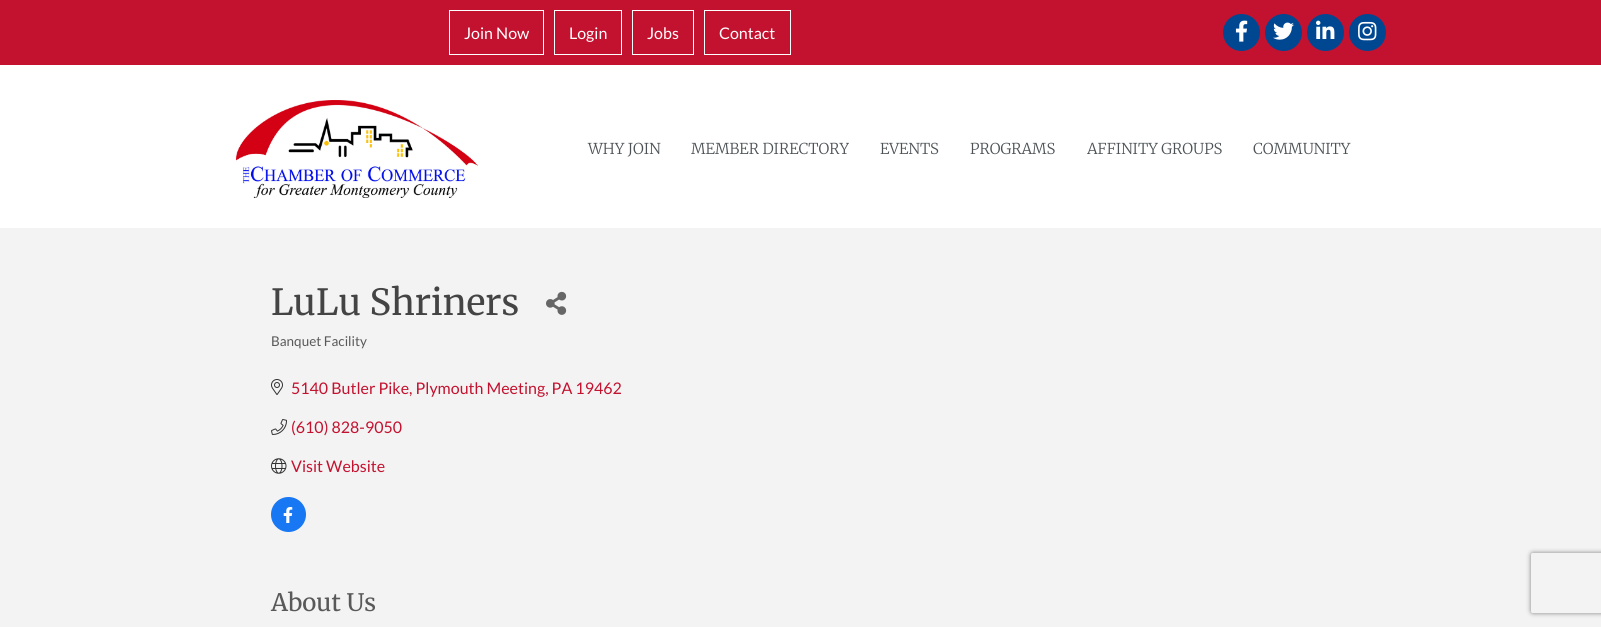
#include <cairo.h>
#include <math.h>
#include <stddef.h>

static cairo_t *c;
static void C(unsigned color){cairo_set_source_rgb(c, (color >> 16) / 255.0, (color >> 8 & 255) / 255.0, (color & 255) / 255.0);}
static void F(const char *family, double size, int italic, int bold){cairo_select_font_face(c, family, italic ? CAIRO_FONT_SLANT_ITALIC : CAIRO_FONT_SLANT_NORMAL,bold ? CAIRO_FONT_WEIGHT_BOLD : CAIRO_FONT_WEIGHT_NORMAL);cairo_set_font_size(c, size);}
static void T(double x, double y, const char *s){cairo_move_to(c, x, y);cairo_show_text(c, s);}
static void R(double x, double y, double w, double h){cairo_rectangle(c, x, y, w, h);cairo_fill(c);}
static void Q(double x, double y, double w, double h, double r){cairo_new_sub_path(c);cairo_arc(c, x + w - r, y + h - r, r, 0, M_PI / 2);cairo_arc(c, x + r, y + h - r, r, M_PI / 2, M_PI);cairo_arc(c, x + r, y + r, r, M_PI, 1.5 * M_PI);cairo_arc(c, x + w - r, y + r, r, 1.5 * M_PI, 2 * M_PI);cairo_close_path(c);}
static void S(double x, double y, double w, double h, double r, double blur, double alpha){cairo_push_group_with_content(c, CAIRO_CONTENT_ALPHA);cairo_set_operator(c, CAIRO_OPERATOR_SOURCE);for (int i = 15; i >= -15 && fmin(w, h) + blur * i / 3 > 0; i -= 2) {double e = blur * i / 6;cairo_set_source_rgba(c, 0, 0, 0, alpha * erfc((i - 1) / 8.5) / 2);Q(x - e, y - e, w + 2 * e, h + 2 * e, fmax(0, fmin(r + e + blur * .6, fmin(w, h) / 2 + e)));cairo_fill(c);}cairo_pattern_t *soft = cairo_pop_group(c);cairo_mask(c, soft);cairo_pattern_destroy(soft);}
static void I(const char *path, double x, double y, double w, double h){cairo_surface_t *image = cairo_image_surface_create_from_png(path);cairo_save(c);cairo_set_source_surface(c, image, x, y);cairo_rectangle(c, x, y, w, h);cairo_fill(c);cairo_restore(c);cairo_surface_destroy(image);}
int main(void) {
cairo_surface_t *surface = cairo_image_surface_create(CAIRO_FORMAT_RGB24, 1601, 627);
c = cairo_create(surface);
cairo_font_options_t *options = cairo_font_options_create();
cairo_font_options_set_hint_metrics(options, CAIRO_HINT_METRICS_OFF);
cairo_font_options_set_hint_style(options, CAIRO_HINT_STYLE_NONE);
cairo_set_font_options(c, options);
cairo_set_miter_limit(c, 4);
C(0xffffff);
cairo_paint(c);
C(0xc3122f);
R(0,0,1601,65);
cairo_rectangle(c,449.5,10.5,94,44);
C(0xffffff);
cairo_set_line_width(c,1);
cairo_stroke(c);
F("Lato",16,0,0);
T(464,39,"Join Now");
cairo_rectangle(c,554.5,10.5,67,44);
cairo_stroke(c);
T(569,39,"Login");
cairo_rectangle(c,632.5,10.5,61,44);
cairo_stroke(c);
T(647,39,"Jobs");
cairo_rectangle(c,704.5,10.5,86,44);
cairo_stroke(c);
T(719,39,"Contact");
C(0x004792);
cairo_new_path(c);
cairo_arc(c,1241.5,32.5,18.5,0,2 * M_PI);
cairo_fill(c);
I("1.png",1235,20,13,22);
cairo_arc(c,1283.5,32.5,18.5,0,2 * M_PI);
cairo_fill(c);
I("2.png",1273,22,21,18);
cairo_arc(c,1325.5,32.5,18.5,0,2 * M_PI);
cairo_fill(c);
I("3.png",1316,20,19,19);
cairo_arc(c,1367.5,32.5,18.5,0,2 * M_PI);
cairo_fill(c);
I("4.png",1358,21,19,20);
I("5.png",236,100,242,98);
F("Merriweather Light",15,0,0);
C(0x4c5256);
T(588,154,"WHY JOIN");
T(691,154,"MEMBER DIRECTORY");
T(880,154,"EVENTS");
T(970,154,"PROGRAMS");
T(1087,154,"AFFINITY GROUPS");
T(1253,154,"COMMUNITY");
C(0xf3f3f3);
R(0,228,1601,399);
F("Merriweather",36,0,0);
C(0x444444);
T(271,315,"LuLu Shriners");
I("6.png",546,291,21,24);
F("Lato",13.5,0,0);
C(0x595959);
T(271,346,"Banquet Facility");
I("7.png",271,379,12,16);
F("Lato",16,0,0);
C(0xc3122f);
T(291,394,"5140 Butler Pike, Plymouth Meeting, PA 19462");
I("8.png",271,419,16,16);
T(291,433,"(610) 828-9050");
I("9.png",271,458,16,16);
T(291,472,"Visit Website");
C(0x1877f2);
cairo_new_path(c);
cairo_arc(c,288.5,514.5,17.5,0,2 * M_PI);
cairo_fill(c);
I("10.png",283,507,10,16);
F("Merriweather",24,0,0);
C(0x595959);
T(271,611,"About Us");
cairo_save(c);
cairo_set_fill_rule(c,CAIRO_FILL_RULE_EVEN_ODD);
cairo_new_path(c);
cairo_move_to(c,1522,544);
cairo_line_to(c,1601,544);
cairo_line_to(c,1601,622);
cairo_line_to(c,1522,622);
cairo_close_path(c);
cairo_move_to(c,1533,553);
cairo_line_to(c,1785,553);
cairo_curve_to(c,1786,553,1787,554,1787,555);
cairo_line_to(c,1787,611);
cairo_curve_to(c,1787,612,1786,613,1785,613);
cairo_line_to(c,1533,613);
cairo_curve_to(c,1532,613,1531,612,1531,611);
cairo_line_to(c,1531,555);
cairo_curve_to(c,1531,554,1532,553,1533,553);
cairo_close_path(c);
cairo_clip(c);
C(0x808080);
S(1531,553,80,60,2,2.5,1);
cairo_restore(c);
cairo_surface_write_to_png(surface, "o.png");
cairo_font_options_destroy(options);
cairo_destroy(c);
cairo_surface_destroy(surface);
return 0;
}
